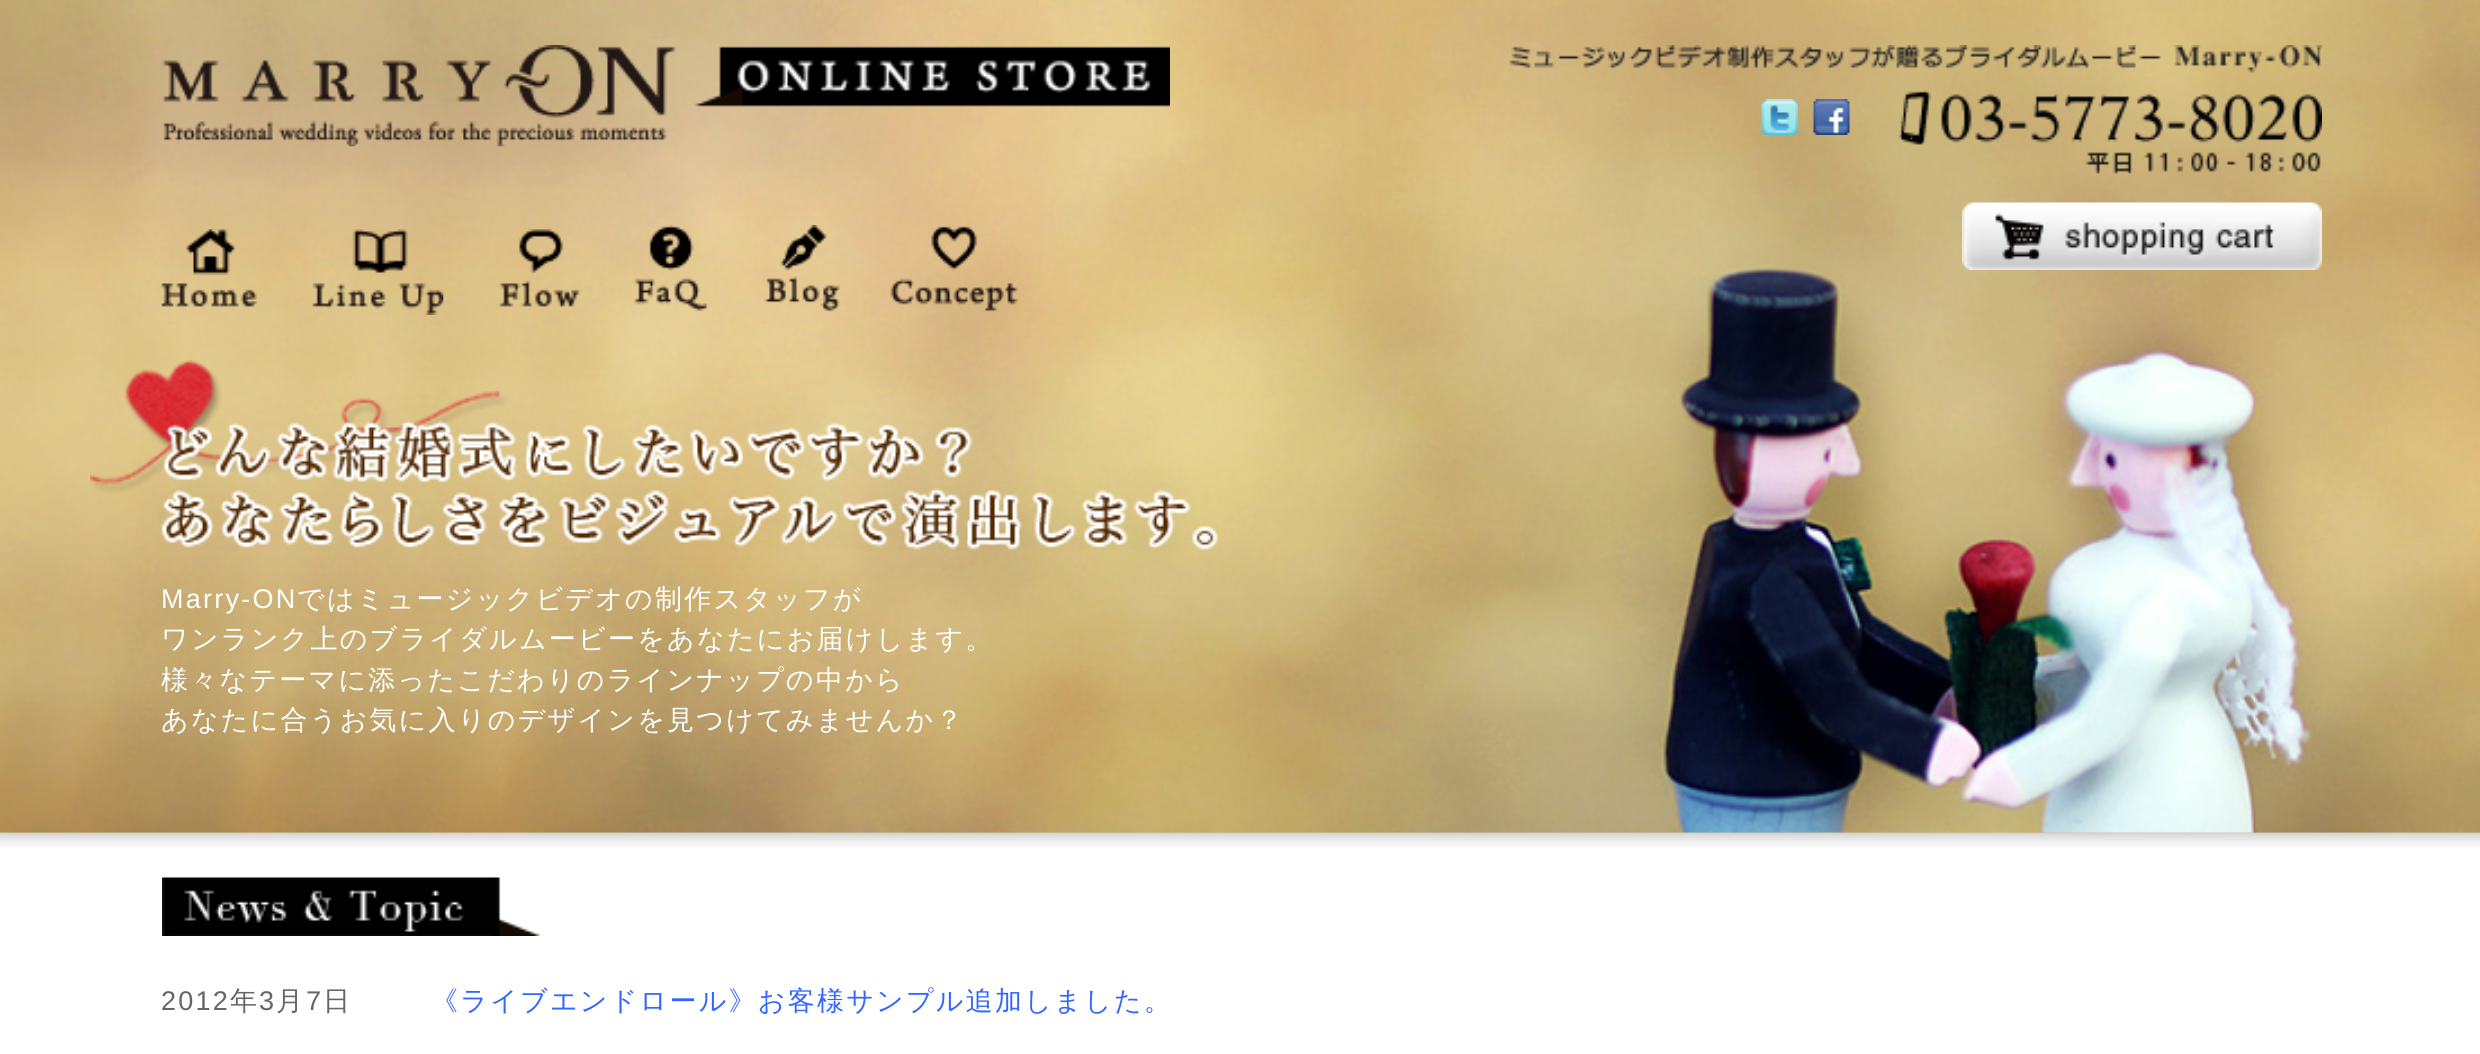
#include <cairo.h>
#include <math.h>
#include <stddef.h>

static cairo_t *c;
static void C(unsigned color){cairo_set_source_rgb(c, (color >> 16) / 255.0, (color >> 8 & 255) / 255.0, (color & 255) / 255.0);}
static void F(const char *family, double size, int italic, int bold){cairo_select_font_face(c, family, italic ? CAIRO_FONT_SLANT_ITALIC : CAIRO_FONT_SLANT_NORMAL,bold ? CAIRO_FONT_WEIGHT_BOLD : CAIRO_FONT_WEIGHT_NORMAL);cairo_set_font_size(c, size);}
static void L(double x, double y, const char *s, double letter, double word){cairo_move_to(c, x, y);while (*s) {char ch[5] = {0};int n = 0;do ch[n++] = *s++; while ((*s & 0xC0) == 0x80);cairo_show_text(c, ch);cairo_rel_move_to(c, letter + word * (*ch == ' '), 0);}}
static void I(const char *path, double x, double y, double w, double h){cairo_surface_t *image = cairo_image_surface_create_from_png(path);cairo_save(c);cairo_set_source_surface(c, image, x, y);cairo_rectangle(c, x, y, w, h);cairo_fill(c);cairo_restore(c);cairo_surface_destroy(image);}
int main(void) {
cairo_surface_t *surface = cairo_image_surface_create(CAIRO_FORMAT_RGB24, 2480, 1054);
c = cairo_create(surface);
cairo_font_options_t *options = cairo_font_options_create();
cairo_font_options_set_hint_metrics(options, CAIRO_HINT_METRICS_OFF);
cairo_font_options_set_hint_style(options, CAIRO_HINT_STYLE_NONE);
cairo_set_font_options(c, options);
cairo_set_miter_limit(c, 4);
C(0xffffff);
cairo_paint(c);
I("1.png",0,832,2480,16);
I("2.png",0,0,2480,833);
I("3.png",162,45,1008,102);
I("4.png",1509,45,813,129);
I("5.png",1761,99,37,36);
I("6.png",1813,99,37,36);
I("7.png",161,229,96,78);
I("8.png",312,229,132,86);
I("9.png",499,229,82,78);
I("10.png",634,225,74,87);
I("11.png",764,225,76,87);
I("12.png",890,226,128,86);
I("13.png",1962,202,360,68);
I("14.png",90,360,1128,190);
F("Liberation Sans",27,0,0);
C(0xffffff);
L(161,608,"Marry-ON",2.25,0);
F("WenQuanYi Zen Hei Medium",27,0,0);
L(297,608,"ではミュージックビデオの制作スタッフが",2.25,0);
L(161,648,"ワンランク上のブライダルムービーをあなたにお届けします。",2.25,0);
L(161,689,"様々なテーマに添ったこだわりのラインナップの中から",2.25,0);
L(161,729,"あなたに合うお気に入りのデザインを見つけてみませんか？",2.25,0);
I("15.png",162,877,378,59);
F("Liberation Sans",27,0,0);
C(0x666666);
L(161,1010,"2012",2.25,0);
F("WenQuanYi Zen Hei Medium",27,0,0);
L(230,1010,"年",2.25,0);
F("Liberation Sans",27,0,0);
L(259,1010,"3",2.25,0);
F("WenQuanYi Zen Hei Medium",27,0,0);
L(276,1010,"月",2.25,0);
F("Liberation Sans",27,0,0);
L(306,1010,"7",2.25,0);
F("WenQuanYi Zen Hei Medium",27,0,0);
L(323,1010,"日",2.25,0);
C(0x3366ff);
L(431,1010,"《ライブエンドロール》お客様サンプル追加しました。",2.25,0);
cairo_surface_write_to_png(surface, "o.png");
cairo_font_options_destroy(options);
cairo_destroy(c);
cairo_surface_destroy(surface);
return 0;
}
